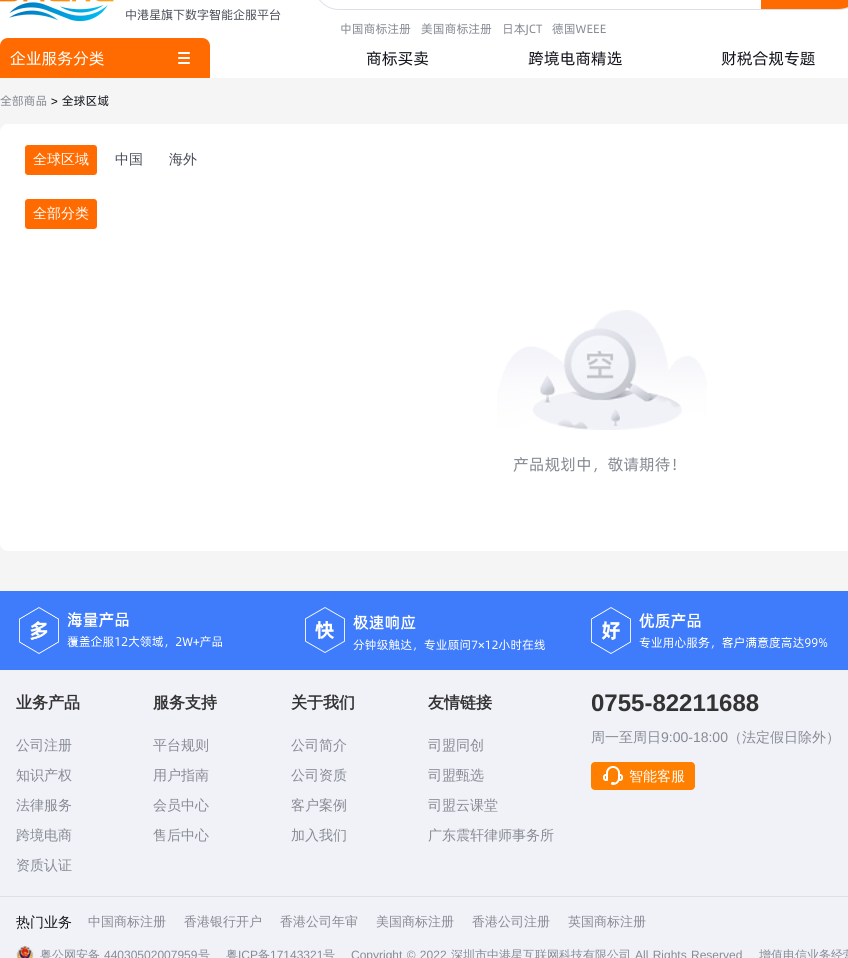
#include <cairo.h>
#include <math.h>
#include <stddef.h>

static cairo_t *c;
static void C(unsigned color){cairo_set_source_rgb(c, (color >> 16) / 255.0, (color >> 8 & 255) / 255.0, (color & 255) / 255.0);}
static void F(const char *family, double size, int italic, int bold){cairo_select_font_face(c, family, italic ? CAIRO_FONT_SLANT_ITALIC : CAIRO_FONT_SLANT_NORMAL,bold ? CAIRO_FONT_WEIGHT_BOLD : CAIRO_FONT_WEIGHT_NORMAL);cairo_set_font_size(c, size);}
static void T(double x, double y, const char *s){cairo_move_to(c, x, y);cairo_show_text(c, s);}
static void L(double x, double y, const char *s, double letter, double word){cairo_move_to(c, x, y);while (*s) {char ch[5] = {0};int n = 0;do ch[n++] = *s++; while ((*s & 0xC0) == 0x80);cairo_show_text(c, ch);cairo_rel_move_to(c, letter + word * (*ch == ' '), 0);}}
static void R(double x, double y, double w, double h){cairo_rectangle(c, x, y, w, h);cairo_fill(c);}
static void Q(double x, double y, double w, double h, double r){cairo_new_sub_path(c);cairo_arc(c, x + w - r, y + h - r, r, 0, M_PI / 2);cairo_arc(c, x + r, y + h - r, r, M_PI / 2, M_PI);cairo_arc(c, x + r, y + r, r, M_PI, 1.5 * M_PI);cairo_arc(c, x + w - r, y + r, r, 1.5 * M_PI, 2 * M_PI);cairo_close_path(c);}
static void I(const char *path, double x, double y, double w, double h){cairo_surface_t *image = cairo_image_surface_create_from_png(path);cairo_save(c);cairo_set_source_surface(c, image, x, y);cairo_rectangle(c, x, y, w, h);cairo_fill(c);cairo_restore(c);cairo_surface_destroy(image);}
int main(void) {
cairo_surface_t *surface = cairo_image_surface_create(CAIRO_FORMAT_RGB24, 848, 958);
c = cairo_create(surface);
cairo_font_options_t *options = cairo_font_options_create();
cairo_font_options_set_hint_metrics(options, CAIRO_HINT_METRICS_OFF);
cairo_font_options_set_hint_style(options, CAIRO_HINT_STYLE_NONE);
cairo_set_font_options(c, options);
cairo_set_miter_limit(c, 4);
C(0xf5f5f5);
cairo_paint(c);
C(0xffffff);
R(0,0,848,78);
I("1.png",0,0,281,21);
Q(314.5,-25.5,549,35,24.5);
C(0xdee0e8);
cairo_set_line_width(c,1);
cairo_stroke(c);
C(0xff6b00);
cairo_new_path(c);
cairo_move_to(c,761,-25);
cairo_line_to(c,838.5,-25);
cairo_curve_to(c,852,-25,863,-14,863,-.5);
cairo_line_to(c,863,-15.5);
cairo_curve_to(c,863,-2,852,9,838.5,9);
cairo_line_to(c,761,9);
cairo_close_path(c);
cairo_fill(c);
F("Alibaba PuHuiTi",12,0,0);
C(0x868a93);
T(340,33,"中国商标注册");
T(421,33,"美国商标注册");
T(502,33,"日本JCT");
T(552,33,"德国WEEE");
C(0xff6b00);
cairo_new_path(c);
cairo_move_to(c,8,38);
cairo_line_to(c,202,38);
cairo_curve_to(c,206.5,38,210,41.5,210,46);
cairo_line_to(c,210,78);
cairo_line_to(c,0,78);
cairo_line_to(c,0,46);
cairo_curve_to(c,0,41.5,3.5,38,8,38);
cairo_close_path(c);
cairo_fill(c);
I("2.png",178,52,12,12);
F("Alibaba PuHuiTi",16,0,0);
C(0xffffff);
T(10,64,"企业服务分类");
C(0x12151b);
T(366,64,"商标买卖");
T(528,64,"跨境电商精选");
T(721,64,"财税合规专题");
F("Alibaba PuHuiTi",12,0,0);
C(0x868a93);
T(0,105,"全部商品");
C(0x12151b);
L(51,105,"> 全球区域",0,1);
C(0xffffff);
Q(0,124,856,427,8);
cairo_fill(c);
C(0xff6b00);
Q(24.5,144.5,73,31,3.5);
cairo_fill_preserve(c);
C(0xffffff);
cairo_stroke(c);
F("WenQuanYi Zen Hei Medium",14,0,0);
T(33,164,"全球区域");
C(0x464a55);
T(115,164,"中国");
T(169,164,"海外");
C(0xff6b00);
Q(24.5,198.5,73,31,3.5);
cairo_fill_preserve(c);
C(0xffffff);
cairo_stroke(c);
T(33,218,"全部分类");
I("3.png",497,310,210,120);
F("Alibaba PuHuiTi",16,0,0);
C(0x868a93);
T(513,470,"产品规划中，敬请期待！");
C(0x3f7cfb);
R(0,591,848,79);
I("4.png",19,607,203,47);
I("5.png",305,607,240,46);
I("6.png",591,607,237,47);
C(0xf1f2f8);
R(0,670,848,226);
C(0xdee0e8);
R(0,896,848,1);
F("WenQuanYi Zen Hei",16,0,1);
C(0x333333);
T(16,708,"业务产品");
F("WenQuanYi Zen Hei Medium",14,0,0);
C(0x868a93);
T(16,750,"公司注册");
T(16,780,"知识产权");
T(16,810,"法律服务");
T(16,840,"跨境电商");
T(16,870,"资质认证");
F("WenQuanYi Zen Hei",16,0,1);
C(0x333333);
T(153,708,"服务支持");
F("WenQuanYi Zen Hei Medium",14,0,0);
C(0x868a93);
T(153,750,"平台规则");
T(153,780,"用户指南");
T(153,810,"会员中心");
T(153,840,"售后中心");
F("WenQuanYi Zen Hei",16,0,1);
C(0x333333);
T(291,708,"关于我们");
F("WenQuanYi Zen Hei Medium",14,0,0);
C(0x868a93);
T(291,750,"公司简介");
T(291,780,"公司资质");
T(291,810,"客户案例");
T(291,840,"加入我们");
F("WenQuanYi Zen Hei",16,0,1);
C(0x333333);
T(428,708,"友情链接");
F("WenQuanYi Zen Hei Medium",14,0,0);
C(0x868a93);
T(428,750,"司盟同创");
T(428,780,"司盟甄选");
T(428,810,"司盟云课堂");
T(428,840,"广东震轩律师事务所");
F("Liberation Sans",24,0,1);
C(0x333333);
T(591,711,"0755-82211688");
F("WenQuanYi Zen Hei Medium",14,0,0);
C(0x868a93);
T(591,742,"周一至周日");
F("Liberation Sans",14,0,0);
T(661,742,"9:00-18:00");
F("WenQuanYi Zen Hei Medium",14,0,0);
T(728,742,"（法定假日除外）");
C(0xff8000);
Q(591,762,104,28,4);
cairo_fill(c);
I("7.png",603,766,20,19);
C(0xffffff);
T(629,781,"智能客服");
C(0xf1f2f8);
R(0,897,848,61);
C(0x12151b);
T(16,927,"热门业务");
F("WenQuanYi Zen Hei Medium",13,0,0);
C(0x868a93);
T(88,926,"中国商标注册");
T(184,926,"香港银行开户");
T(280,926,"香港公司年审");
T(376,926,"美国商标注册");
T(472,926,"香港公司注册");
T(568,926,"英国商标注册");
I("8.png",16,946,18,12);
F("WenQuanYi Zen Hei Medium",12,0,0);
T(40,959,"粤公网安备");
F("Liberation Sans",12,0,0);
T(104,959,"44030502007959");
F("WenQuanYi Zen Hei Medium",12,0,0);
T(198,959,"号");
T(226,959,"粤");
F("Liberation Sans",12,0,0);
T(238,959,"ICP");
F("WenQuanYi Zen Hei Medium",12,0,0);
T(258,959,"备");
F("Liberation Sans",12,0,0);
T(270,959,"17143321");
F("WenQuanYi Zen Hei Medium",12,0,0);
T(323,959,"号");
F("Liberation Sans",12,0,0);
L(351,959,"Copyright © 2022",0,1);
F("WenQuanYi Zen Hei Medium",12,0,0);
T(451,959,"深圳市中港星互联网科技有限公司");
F("Liberation Sans",12,0,0);
L(635,959,"All Rights Reserved",0,1);
F("WenQuanYi Zen Hei Medium",12,0,0);
L(759,959,"增值电信业务经营",0,1);
cairo_surface_write_to_png(surface, "o.png");
cairo_font_options_destroy(options);
cairo_destroy(c);
cairo_surface_destroy(surface);
return 0;
}
